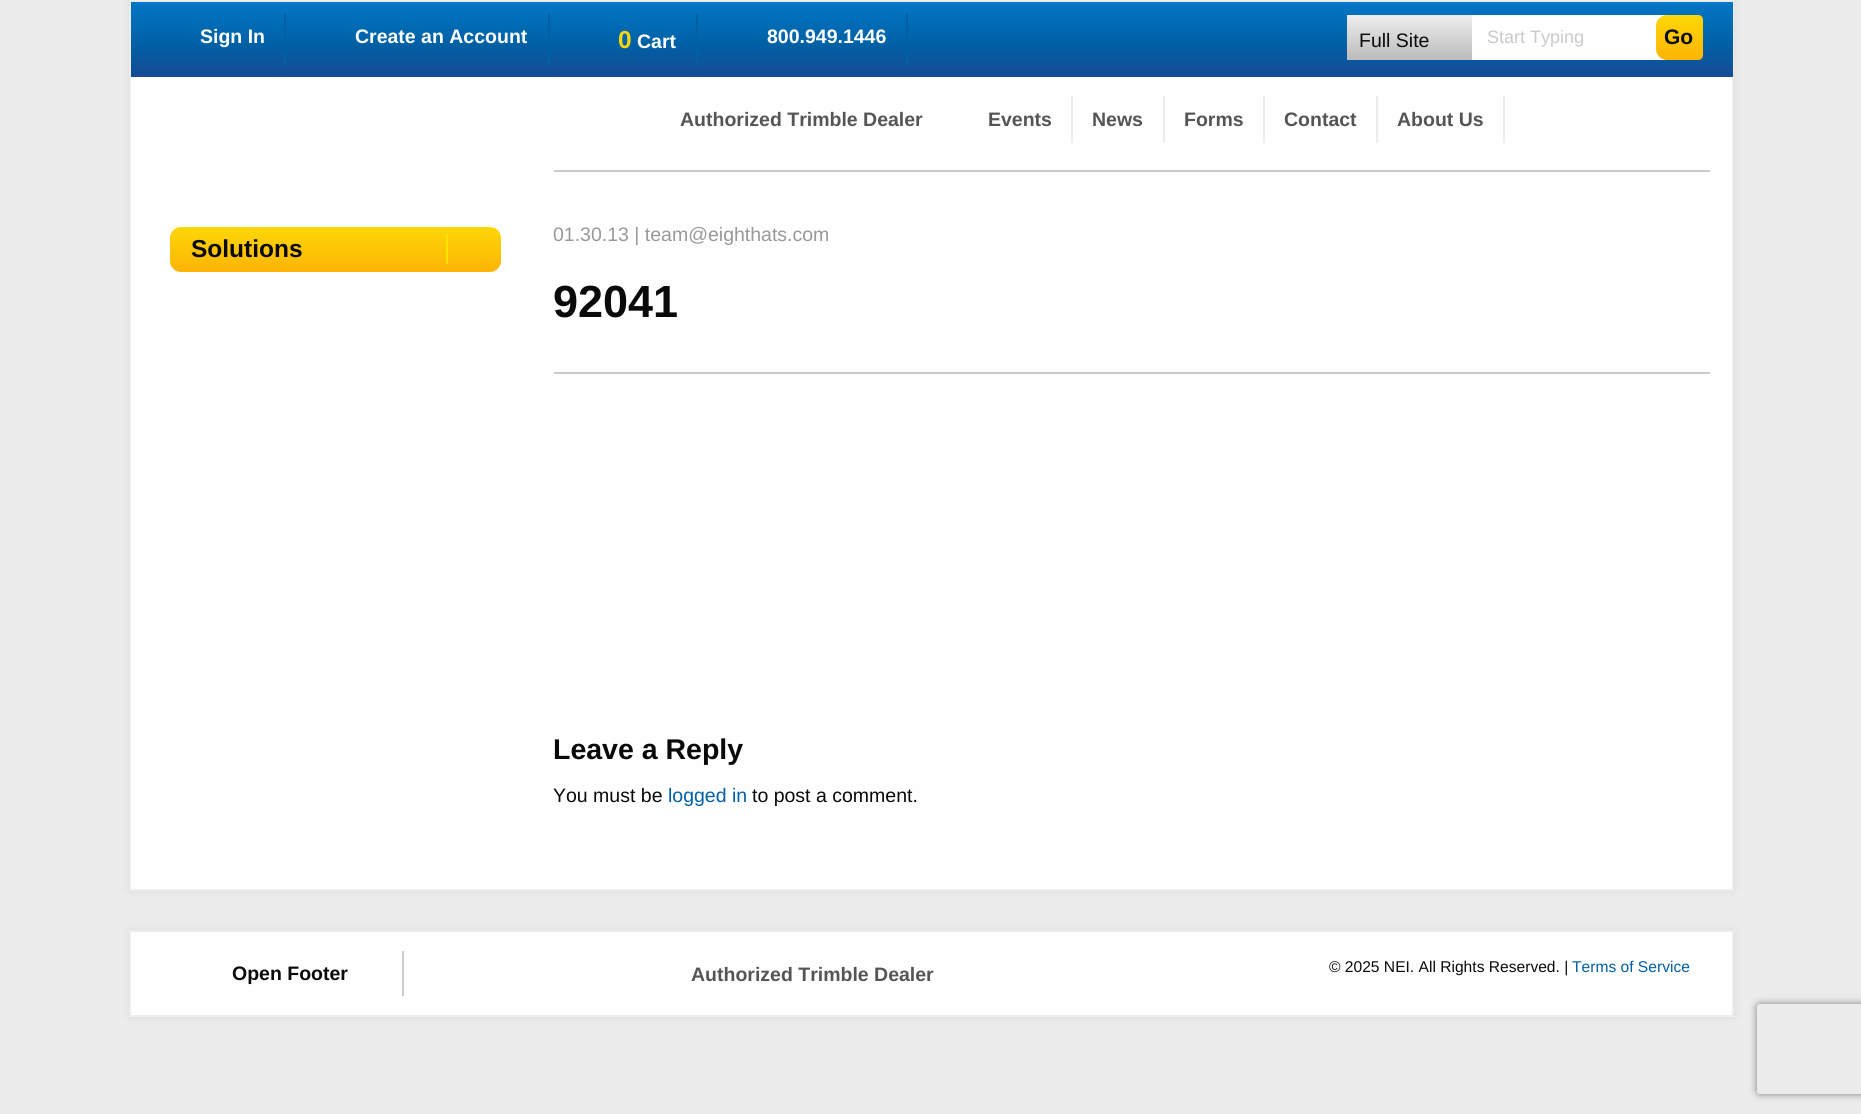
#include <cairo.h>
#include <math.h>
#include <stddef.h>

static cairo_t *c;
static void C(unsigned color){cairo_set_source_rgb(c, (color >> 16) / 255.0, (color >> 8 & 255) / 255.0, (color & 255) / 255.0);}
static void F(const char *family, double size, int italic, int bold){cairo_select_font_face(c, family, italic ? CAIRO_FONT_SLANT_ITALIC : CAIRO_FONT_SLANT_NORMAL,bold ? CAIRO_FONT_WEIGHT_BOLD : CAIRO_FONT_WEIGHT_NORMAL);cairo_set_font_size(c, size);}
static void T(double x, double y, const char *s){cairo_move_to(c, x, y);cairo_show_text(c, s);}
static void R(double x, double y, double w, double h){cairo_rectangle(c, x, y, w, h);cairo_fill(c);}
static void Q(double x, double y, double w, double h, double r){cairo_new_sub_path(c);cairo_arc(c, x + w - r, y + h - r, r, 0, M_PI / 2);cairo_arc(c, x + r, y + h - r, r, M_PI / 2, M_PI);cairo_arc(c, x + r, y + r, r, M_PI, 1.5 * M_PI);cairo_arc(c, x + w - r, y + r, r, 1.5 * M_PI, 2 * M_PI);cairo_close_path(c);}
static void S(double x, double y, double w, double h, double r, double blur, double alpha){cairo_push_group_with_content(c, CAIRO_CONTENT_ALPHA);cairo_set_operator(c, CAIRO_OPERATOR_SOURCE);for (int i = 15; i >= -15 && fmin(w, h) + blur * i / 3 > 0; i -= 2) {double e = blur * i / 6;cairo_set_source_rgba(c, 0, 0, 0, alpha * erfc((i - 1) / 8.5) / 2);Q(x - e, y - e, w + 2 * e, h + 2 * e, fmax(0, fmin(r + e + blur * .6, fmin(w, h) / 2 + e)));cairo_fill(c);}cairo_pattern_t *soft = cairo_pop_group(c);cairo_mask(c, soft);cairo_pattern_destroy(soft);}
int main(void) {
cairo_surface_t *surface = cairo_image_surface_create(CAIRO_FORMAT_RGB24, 1861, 1114);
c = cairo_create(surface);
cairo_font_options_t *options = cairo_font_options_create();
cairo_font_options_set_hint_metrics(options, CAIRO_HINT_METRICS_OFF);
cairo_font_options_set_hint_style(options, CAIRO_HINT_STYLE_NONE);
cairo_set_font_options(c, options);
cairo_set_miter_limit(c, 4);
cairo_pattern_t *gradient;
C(0xececec);
cairo_paint(c);
C(0x555555);
S(129,0,1605,891,0,4.5,.12);
C(0xfefefe);
R(131,77,1601,812);
cairo_rectangle(c,130,1,1603,889);
C(0xececec);
cairo_stroke(c);
gradient = cairo_pattern_create_linear(932,1.5,932,77);
cairo_pattern_add_color_stop_rgba(gradient,0,0.008,0.463,0.78,1);
cairo_pattern_add_color_stop_rgba(gradient,.56,0,0.38,0.647,1);
cairo_pattern_add_color_stop_rgba(gradient,1,0.09,0.294,0.573,1);
cairo_set_source(c,gradient);
cairo_pattern_destroy(gradient);
R(131,2,1602,75);
C(0x0060a5);
R(284,14,2,51);
F("Liberation Sans",19.5,0,1);
C(0xffffff);
T(200,43,"Sign In");
C(0x0060a5);
R(548,14,2,51);
C(0xffffff);
T(355,43,"Create an Account");
C(0x0060a5);
R(696,14,2,51);
F("Liberation Sans",24.5,0,1);
C(0xfdd707);
T(618,48,"0");
F("Liberation Sans",19.5,0,1);
C(0xffffff);
T(637,48,"Cart");
C(0x0060a5);
R(906,14,2,51);
C(0xffffff);
T(767,43,"800.949.1446");
gradient = cairo_pattern_create_linear(1409,15,1409,60);
cairo_pattern_add_color_stop_rgba(gradient,0,0.933,0.933,0.933,1);
cairo_pattern_add_color_stop_rgba(gradient,1,0.733,0.733,0.733,1);
cairo_set_source(c,gradient);
cairo_pattern_destroy(gradient);
R(1347,15,125,45);
F("Liberation Sans",19.5,0,0);
C(0x0a0a0a);
T(1359,47,"Full Site");
C(0xfefefe);
R(1472,15,195,45);
F("Liberation Sans",18,0,0);
C(0xcacaca);
T(1487,43,"Start Typing");
gradient = cairo_pattern_create_linear(1679,15,1679,60);
cairo_pattern_add_color_stop_rgba(gradient,0,0.992,0.843,0.027,1);
cairo_pattern_add_color_stop_rgba(gradient,1,0.992,0.706,0.02,1);
cairo_set_source(c,gradient);
cairo_pattern_destroy(gradient);
cairo_new_path(c);
cairo_move_to(c,1667,15);
cairo_line_to(c,1698,15);
cairo_curve_to(c,1701,15,1703,17,1703,20);
cairo_line_to(c,1703,55);
cairo_curve_to(c,1703,58,1701,60,1698,60);
cairo_line_to(c,1667,60);
cairo_curve_to(c,1661,60,1656,55,1656,49);
cairo_line_to(c,1656,26);
cairo_curve_to(c,1656,20,1661,15,1667,15);
cairo_close_path(c);
cairo_fill(c);
F("Liberation Sans",21,0,1);
C(0x0a0a0a);
T(1664,44,"Go");
gradient = cairo_pattern_create_linear(335,227,335,272);
cairo_pattern_add_color_stop_rgba(gradient,0,0.992,0.843,0.027,1);
cairo_pattern_add_color_stop_rgba(gradient,1,0.992,0.706,0.02,1);
cairo_set_source(c,gradient);
cairo_pattern_destroy(gradient);
Q(170,227,331,45,11);
cairo_fill(c);
F("Liberation Sans",24.5,0,1);
C(0x0a0a0a);
T(191,257,"Solutions");
C(0xfee202);
R(446,234,2,30);
C(0xcacaca);
R(554,170,1156,2);
F("Liberation Sans",19.5,0,1);
C(0x555555);
T(680,126,"Authorized Trimble Dealer");
C(0xececec);
R(1071,96,2,47);
C(0x555555);
T(988,126,"Events");
C(0xececec);
R(1163,96,2,47);
C(0x555555);
T(1092,126,"News");
C(0xececec);
R(1263,96,2,47);
C(0x555555);
T(1184,126,"Forms");
C(0xececec);
R(1376,96,2,47);
C(0x555555);
T(1284,126,"Contact");
C(0xececec);
R(1503,96,2,47);
C(0x555555);
T(1397,126,"About Us");
C(0xcacaca);
R(554,372,1156,2);
F("Liberation Sans",19.5,0,0);
C(0x999999);
T(553,241,"01.30.13 | team@eighthats.com");
F("Liberation Sans",45,0,1);
C(0x0a0a0a);
T(553,317,"92041");
F("Liberation Sans",28.5,0,1);
T(553,759,"Leave a Reply");
F("Liberation Sans",19.5,0,0);
T(553,802,"You must be");
C(0x0060a5);
T(668,802,"logged in");
C(0x0a0a0a);
T(752,802,"to post a comment.");
C(0x555555);
S(129,930,1605,87,0,4.5,.12);
C(0xfefefe);
cairo_rectangle(c,130,931,1603,85);
cairo_fill_preserve(c);
C(0xececec);
cairo_stroke(c);
C(0xcccccc);
R(402,951,2,45);
F("Liberation Sans",19.5,0,1);
C(0x0a0a0a);
T(232,980,"Open Footer");
C(0x555555);
T(691,981,"Authorized Trimble Dealer");
F("Liberation Sans",15.6,0,0);
C(0x0a0a0a);
T(1329,972,"© 2025 NEI. All Rights Reserved. |");
C(0x0060a5);
T(1572,972,"Terms of Service");
cairo_save(c);
cairo_set_fill_rule(c,CAIRO_FILL_RULE_EVEN_ODD);
cairo_new_path(c);
cairo_move_to(c,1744,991);
cairo_line_to(c,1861,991);
cairo_line_to(c,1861,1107);
cairo_line_to(c,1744,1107);
cairo_close_path(c);
cairo_move_to(c,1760,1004);
cairo_line_to(c,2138,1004);
cairo_curve_to(c,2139.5,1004,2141,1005.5,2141,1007);
cairo_line_to(c,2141,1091);
cairo_curve_to(c,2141,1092.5,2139.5,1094,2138,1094);
cairo_line_to(c,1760,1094);
cairo_curve_to(c,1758.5,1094,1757,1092.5,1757,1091);
cairo_line_to(c,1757,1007);
cairo_curve_to(c,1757,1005.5,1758.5,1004,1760,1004);
cairo_close_path(c);
cairo_clip(c);
C(0x808080);
S(1757,1004,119,90,3,4,1);
cairo_restore(c);
cairo_surface_write_to_png(surface, "o.png");
cairo_font_options_destroy(options);
cairo_destroy(c);
cairo_surface_destroy(surface);
return 0;
}
